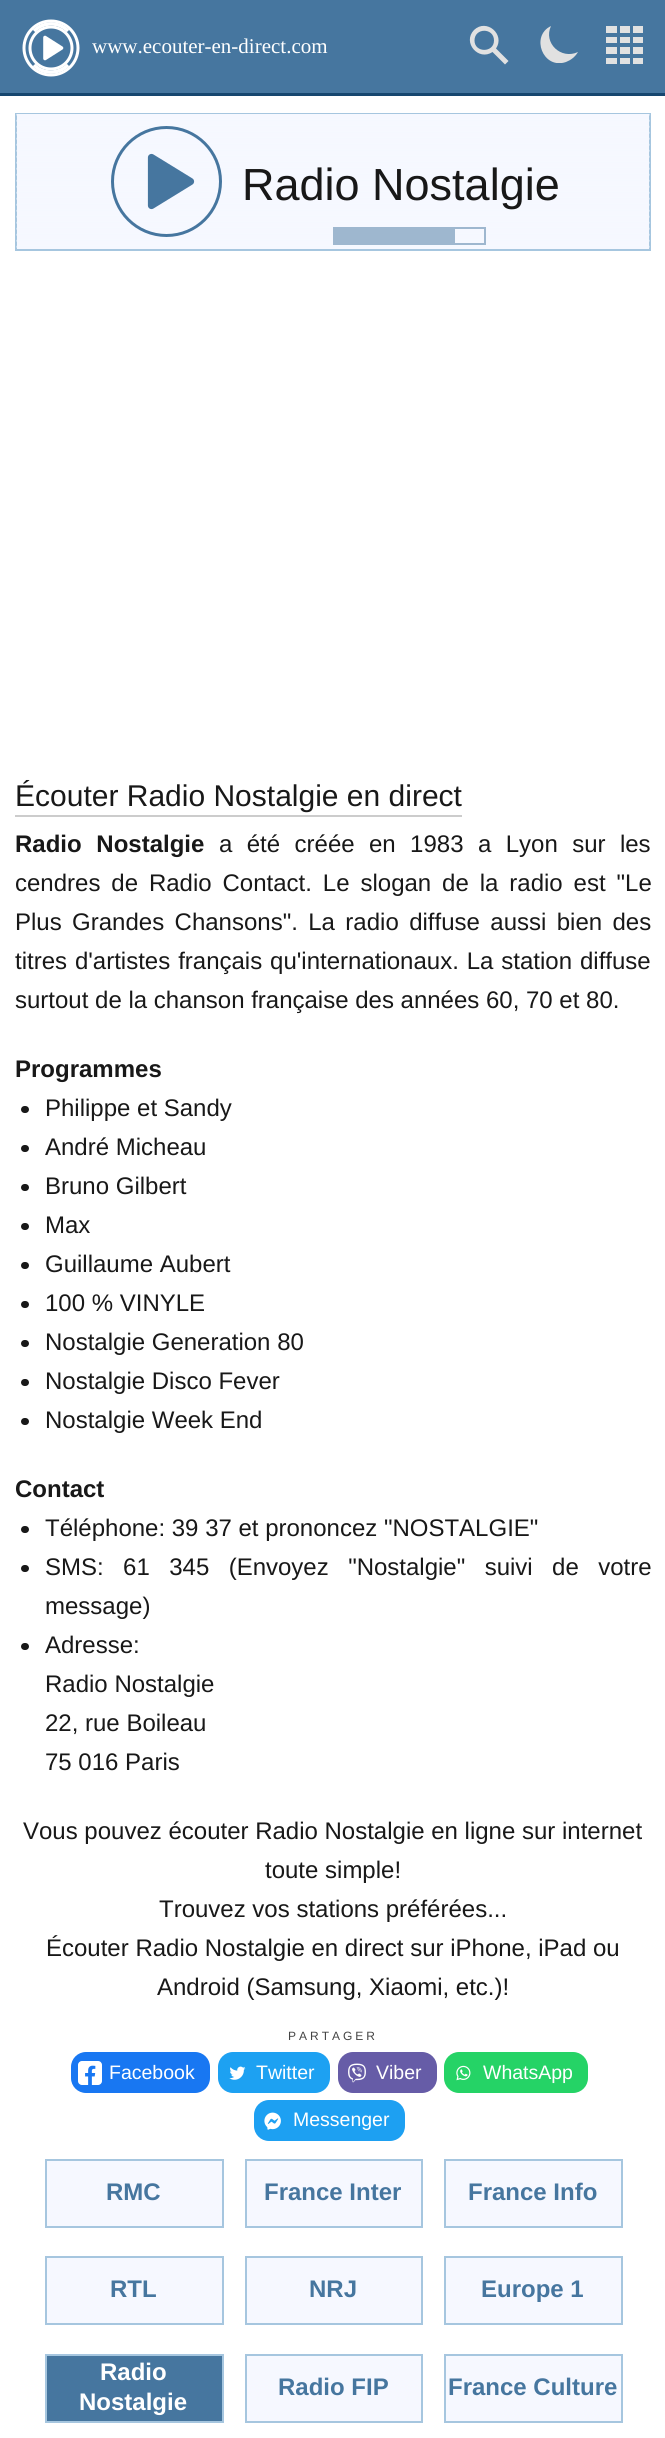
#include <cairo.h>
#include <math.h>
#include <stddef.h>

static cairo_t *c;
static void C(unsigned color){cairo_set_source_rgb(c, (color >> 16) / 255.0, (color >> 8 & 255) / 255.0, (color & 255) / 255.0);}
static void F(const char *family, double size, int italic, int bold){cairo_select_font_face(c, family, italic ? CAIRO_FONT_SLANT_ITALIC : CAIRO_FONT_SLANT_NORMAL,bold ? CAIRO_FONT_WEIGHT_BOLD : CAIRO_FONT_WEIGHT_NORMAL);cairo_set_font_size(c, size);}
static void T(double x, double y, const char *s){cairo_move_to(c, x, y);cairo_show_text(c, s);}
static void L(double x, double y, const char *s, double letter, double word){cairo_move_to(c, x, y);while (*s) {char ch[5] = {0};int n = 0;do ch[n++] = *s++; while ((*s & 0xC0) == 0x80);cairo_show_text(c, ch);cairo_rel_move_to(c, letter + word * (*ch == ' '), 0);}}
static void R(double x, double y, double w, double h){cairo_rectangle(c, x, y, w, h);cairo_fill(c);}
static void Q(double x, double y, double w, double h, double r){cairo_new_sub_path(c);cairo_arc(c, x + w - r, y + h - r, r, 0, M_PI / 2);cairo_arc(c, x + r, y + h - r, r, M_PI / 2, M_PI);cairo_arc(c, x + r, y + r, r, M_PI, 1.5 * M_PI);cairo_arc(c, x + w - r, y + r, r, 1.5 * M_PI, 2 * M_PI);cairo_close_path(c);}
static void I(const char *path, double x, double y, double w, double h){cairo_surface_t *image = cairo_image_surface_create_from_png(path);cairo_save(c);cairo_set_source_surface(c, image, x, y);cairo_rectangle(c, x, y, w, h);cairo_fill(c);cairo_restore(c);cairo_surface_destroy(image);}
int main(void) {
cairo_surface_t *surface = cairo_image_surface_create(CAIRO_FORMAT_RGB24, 665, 2438);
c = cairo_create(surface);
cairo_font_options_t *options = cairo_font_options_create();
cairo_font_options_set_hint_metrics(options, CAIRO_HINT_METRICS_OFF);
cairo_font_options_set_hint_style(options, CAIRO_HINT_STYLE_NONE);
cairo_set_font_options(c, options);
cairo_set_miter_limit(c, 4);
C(0x46769f);
cairo_paint(c);
C(0x16466f);
R(0,93,665,3);
C(0xffffff);
cairo_new_path(c);
cairo_move_to(c,45,37.5);
cairo_line_to(c,61.5,48);
cairo_line_to(c,45,58.5);
cairo_close_path(c);
cairo_fill_preserve(c);
cairo_set_line_width(c,3.6);
cairo_set_line_join(c,CAIRO_LINE_JOIN_ROUND);
cairo_stroke(c);
cairo_arc(c,51,48,27,0,2 * M_PI);
cairo_set_line_width(c,3);
cairo_set_line_join(c,CAIRO_LINE_JOIN_MITER);
cairo_stroke(c);
cairo_arc(c,51,48,21,0,2 * M_PI);
cairo_stroke(c);
cairo_new_path(c);
cairo_move_to(c,68,31);
cairo_curve_to(c,59,21.5,43.5,21.5,34,31);
cairo_move_to(c,34,65);
cairo_curve_to(c,43,74.5,58.5,74.5,68,65);
cairo_set_line_width(c,3.6);
cairo_stroke(c);
F("Liberation Serif",21,0,0);
T(92,53,"www.ecouter-en-direct.com");
C(0xe1e1e1);
cairo_new_path(c);
cairo_move_to(c,508.5,61);
cairo_line_to(c,496,48.5);
cairo_curve_to(c,505.5,34.5,486.5,18,474,30);
cairo_curve_to(c,462,42.5,478.5,61.5,492.5,52);
cairo_line_to(c,505,64.5);
cairo_close_path(c);
cairo_move_to(c,474.5,40.5);
cairo_curve_to(c,474.5,27.5,494,27.5,494,40.5);
cairo_curve_to(c,494,53,474.5,53,474.5,40.5);
cairo_close_path(c);
cairo_fill(c);
cairo_save(c);
cairo_rectangle(c,540,26,38,37);
cairo_clip(c);
cairo_new_path(c);
cairo_move_to(c,551,26);
cairo_curve_to(c,543,43,561,60,578,52);
cairo_curve_to(c,575,57,571,60,566,62);
cairo_curve_to(c,543,70,530,36,551,26);
cairo_close_path(c);
cairo_move_to(c,568,32);
cairo_line_to(c,573,28);
cairo_fill(c);
cairo_restore(c);
I("1.png",606,26,37,38);
C(0xffffff);
R(0,96,665,2342);
C(0xf6f8ff);
cairo_rectangle(c,16,114,634,136);
cairo_fill_preserve(c);
C(0xa6c6df);
cairo_set_line_width(c,2);
cairo_stroke(c);
I("2.png",16,114,634,134);
cairo_arc(c,166.5,181.5,54,0,2 * M_PI);
C(0x46769f);
cairo_set_line_width(c,3);
cairo_stroke(c);
cairo_new_path(c);
cairo_move_to(c,152,158);
cairo_line_to(c,190,182);
cairo_line_to(c,152,206);
cairo_close_path(c);
cairo_fill(c);
cairo_new_path(c);
cairo_move_to(c,151.5,157.5);
cairo_line_to(c,190.5,181.5);
cairo_line_to(c,151.5,205.5);
cairo_close_path(c);
cairo_set_line_width(c,7.2);
cairo_set_line_join(c,CAIRO_LINE_JOIN_ROUND);
cairo_stroke(c);
F("Liberation Sans",45,0,0);
C(0x181818);
T(242,200,"Radio Nostalgie");
cairo_rectangle(c,334,228,151,16);
C(0x9eb7cf);
cairo_set_line_width(c,2);
cairo_set_line_join(c,CAIRO_LINE_JOIN_MITER);
cairo_stroke(c);
R(335,228,15,15);
R(350,229,105,14);
C(0xcccccc);
R(15,815,447,2);
F("Liberation Sans",30,0,0);
C(0x181818);
T(15,806,"Écouter Radio Nostalgie en direct");
F("Liberation Sans",24,0,1);
L(15,852,"Radio Nostalgie",0,8);
F("Liberation Sans",24,0,0);
L(219,852,"a été créée en 1983 a Lyon sur les",0,7.75);
L(15,891,"cendres de Radio Contact. Le slogan de la radio est \"Le",0,4.25);
L(15,930,"Plus Grandes Chansons\". La radio diffuse aussi bien des",0,3.75);
L(15,969,"titres d'artistes français qu'internationaux. La station diffuse",0,1.25);
T(15,1008,"surtout de la chanson française des années 60, 70 et 80.");
F("Liberation Sans",24,0,1);
T(15,1077,"Programmes");
Q(21,1106,8,7,3.5);
cairo_fill(c);
F("Liberation Sans",24,0,0);
T(45,1116,"Philippe et Sandy");
Q(21,1145,8,7,3.5);
cairo_fill(c);
T(45,1155,"André Micheau");
Q(21,1184,8,7,3.5);
cairo_fill(c);
T(45,1194,"Bruno Gilbert");
Q(21,1223,8,7,3.5);
cairo_fill(c);
T(45,1233,"Max");
Q(21,1262,8,7,3.5);
cairo_fill(c);
T(45,1272,"Guillaume Aubert");
Q(21,1301,8,7,3.5);
cairo_fill(c);
T(45,1311,"100 % VINYLE");
Q(21,1340,8,7,3.5);
cairo_fill(c);
T(45,1350,"Nostalgie Generation 80");
Q(21,1379,8,7,3.5);
cairo_fill(c);
T(45,1389,"Nostalgie Disco Fever");
Q(21,1418,8,7,3.5);
cairo_fill(c);
T(45,1428,"Nostalgie Week End");
F("Liberation Sans",24,0,1);
T(15,1497,"Contact");
Q(21,1526,8,7,3.5);
cairo_fill(c);
F("Liberation Sans",24,0,0);
T(45,1536,"Téléphone: 39 37 et prononcez \"NOSTALGIE\"");
Q(21,1565,8,7,3.5);
cairo_fill(c);
L(45,1575,"SMS: 61 345 (Envoyez \"Nostalgie\" suivi de votre",0,12.75);
T(45,1614,"message)");
Q(21,1643,8,7,3.5);
cairo_fill(c);
T(45,1653,"Adresse:");
T(45,1692,"Radio Nostalgie");
T(45,1731,"22, rue Boileau");
T(45,1770,"75 016 Paris");
T(23,1839,"Vous pouvez écouter Radio Nostalgie en ligne sur internet");
T(265,1878,"toute simple!");
T(159,1917,"Trouvez vos stations préférées...");
T(46,1956,"Écouter Radio Nostalgie en direct sur iPhone, iPad ou");
T(157,1995,"Android (Samsung, Xiaomi, etc.)!");
F("Liberation Sans",12,0,0);
C(0x444444);
L(288,2040,"PARTAGER",3,0);
C(0x1877f2);
Q(71,2052,139,41,15);
cairo_fill(c);
I("3.png",78,2061,24,24);
F("Liberation Sans",19.5,0,0);
C(0xffffff);
T(109,2079,"Facebook");
C(0x1da1f2);
Q(218,2052,112,41,15);
cairo_fill(c);
I("4.png",229,2066,17,14);
C(0xffffff);
T(256,2079,"Twitter");
C(0x665ca7);
Q(338,2052,99,41,15);
cairo_fill(c);
I("5.png",348,2063,18,20);
C(0xffffff);
T(376,2079,"Viber");
C(0x25d366);
Q(444,2052,144,41,15);
cairo_fill(c);
I("6.png",456,2065,15,16);
C(0xffffff);
T(483,2079,"WhatsApp");
C(0x1da0f2);
Q(254,2100,151,41,15);
cairo_fill(c);
I("7.png",264,2112,17,18);
C(0xffffff);
T(293,2126,"Messenger");
C(0xf6f8ff);
cairo_rectangle(c,46,2160,177,67);
cairo_fill_preserve(c);
C(0xa6c6df);
cairo_stroke(c);
F("Liberation Sans",24,0,1);
C(0x46769f);
T(106,2200,"RMC");
C(0xf6f8ff);
cairo_rectangle(c,246,2160,176,67);
cairo_fill_preserve(c);
C(0xa6c6df);
cairo_stroke(c);
C(0x46769f);
T(264,2200,"France Inter");
C(0xf6f8ff);
cairo_rectangle(c,445,2160,177,67);
cairo_fill_preserve(c);
C(0xa6c6df);
cairo_stroke(c);
C(0x46769f);
T(468,2200,"France Info");
C(0xf6f8ff);
cairo_rectangle(c,46,2257,177,67);
cairo_fill_preserve(c);
C(0xa6c6df);
cairo_stroke(c);
C(0x46769f);
T(110,2297,"RTL");
C(0xf6f8ff);
cairo_rectangle(c,246,2257,176,67);
cairo_fill_preserve(c);
C(0xa6c6df);
cairo_stroke(c);
C(0x46769f);
T(309,2297,"NRJ");
C(0xf6f8ff);
cairo_rectangle(c,445,2257,177,67);
cairo_fill_preserve(c);
C(0xa6c6df);
cairo_stroke(c);
C(0x46769f);
T(481,2297,"Europe 1");
cairo_rectangle(c,46,2355,177,67);
cairo_fill_preserve(c);
C(0xa6c6df);
cairo_stroke(c);
C(0xffffff);
T(100,2380,"Radio");
T(79,2410,"Nostalgie");
C(0xf6f8ff);
cairo_rectangle(c,246,2355,176,67);
cairo_fill_preserve(c);
C(0xa6c6df);
cairo_stroke(c);
C(0x46769f);
T(278,2395,"Radio FIP");
C(0xf6f8ff);
cairo_rectangle(c,445,2355,177,67);
cairo_fill_preserve(c);
C(0xa6c6df);
cairo_stroke(c);
C(0x46769f);
T(448,2395,"France Culture");
cairo_surface_write_to_png(surface, "o.png");
cairo_font_options_destroy(options);
cairo_destroy(c);
cairo_surface_destroy(surface);
return 0;
}
